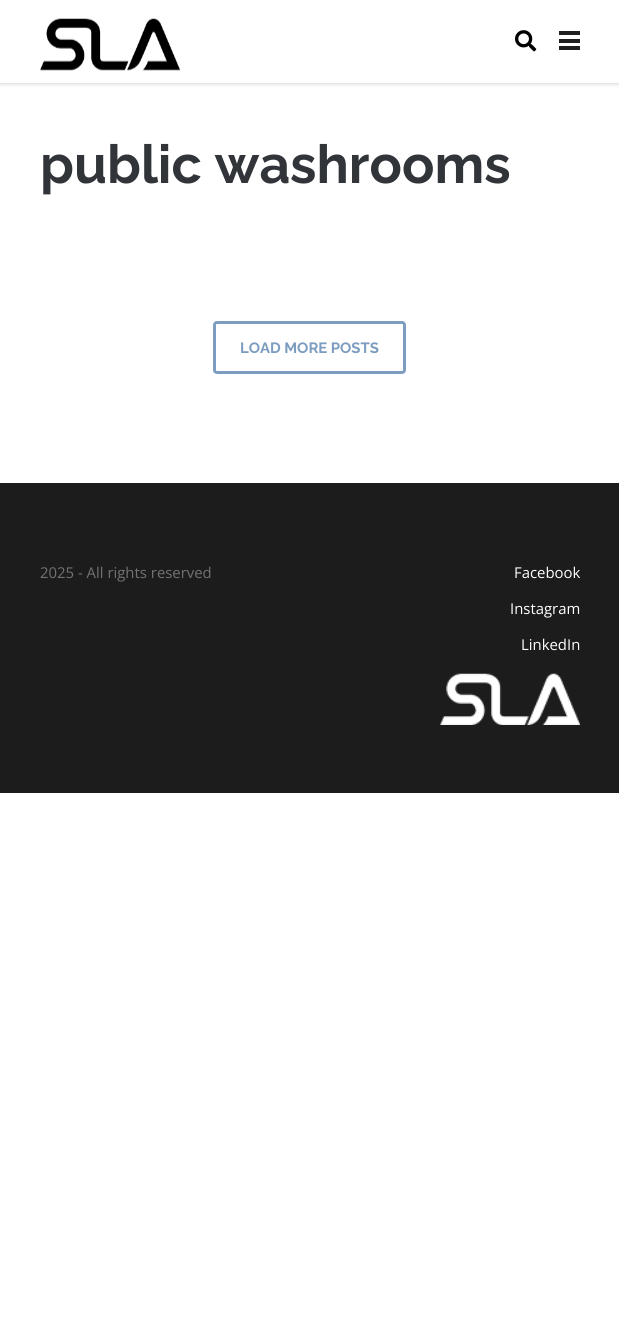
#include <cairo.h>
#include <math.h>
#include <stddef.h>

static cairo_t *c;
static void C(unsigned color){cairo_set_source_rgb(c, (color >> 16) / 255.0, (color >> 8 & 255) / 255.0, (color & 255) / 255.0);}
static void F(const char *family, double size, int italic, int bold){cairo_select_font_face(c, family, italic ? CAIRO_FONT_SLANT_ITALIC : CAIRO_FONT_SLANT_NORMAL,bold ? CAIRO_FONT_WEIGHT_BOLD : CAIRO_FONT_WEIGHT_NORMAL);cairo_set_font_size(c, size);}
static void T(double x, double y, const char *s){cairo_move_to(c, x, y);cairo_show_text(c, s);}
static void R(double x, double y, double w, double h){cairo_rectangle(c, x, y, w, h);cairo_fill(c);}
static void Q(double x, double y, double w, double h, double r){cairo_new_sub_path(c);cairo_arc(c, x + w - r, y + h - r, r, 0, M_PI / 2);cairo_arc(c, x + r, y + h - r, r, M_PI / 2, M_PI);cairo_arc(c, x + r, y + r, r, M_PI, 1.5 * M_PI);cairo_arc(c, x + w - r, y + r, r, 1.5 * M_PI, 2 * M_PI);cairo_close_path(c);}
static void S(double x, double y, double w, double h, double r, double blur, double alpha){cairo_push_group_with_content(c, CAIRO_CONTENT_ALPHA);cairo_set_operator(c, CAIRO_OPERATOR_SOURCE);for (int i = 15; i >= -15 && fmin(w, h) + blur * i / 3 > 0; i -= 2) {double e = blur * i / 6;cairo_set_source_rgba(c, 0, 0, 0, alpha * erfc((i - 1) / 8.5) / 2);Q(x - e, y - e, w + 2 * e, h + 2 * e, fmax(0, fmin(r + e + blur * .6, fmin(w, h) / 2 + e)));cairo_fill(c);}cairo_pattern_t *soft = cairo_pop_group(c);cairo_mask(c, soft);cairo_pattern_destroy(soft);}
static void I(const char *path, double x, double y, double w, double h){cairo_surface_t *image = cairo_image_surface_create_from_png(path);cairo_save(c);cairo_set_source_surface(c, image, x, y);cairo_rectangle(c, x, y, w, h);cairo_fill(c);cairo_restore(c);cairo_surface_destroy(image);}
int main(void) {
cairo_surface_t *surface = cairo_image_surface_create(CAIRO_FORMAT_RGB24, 619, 1319);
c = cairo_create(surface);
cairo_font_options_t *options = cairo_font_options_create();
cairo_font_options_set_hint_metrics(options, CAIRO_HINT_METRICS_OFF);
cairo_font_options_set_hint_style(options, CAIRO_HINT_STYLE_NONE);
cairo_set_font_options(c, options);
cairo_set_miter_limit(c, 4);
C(0xffffff);
cairo_paint(c);
cairo_save(c);
cairo_set_fill_rule(c,CAIRO_FILL_RULE_EVEN_ODD);
cairo_new_path(c);
cairo_move_to(c,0,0);
cairo_line_to(c,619,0);
cairo_line_to(c,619,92);
cairo_line_to(c,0,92);
cairo_close_path(c);
cairo_move_to(c,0,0);
cairo_line_to(c,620,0);
cairo_line_to(c,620,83);
cairo_line_to(c,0,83);
cairo_close_path(c);
cairo_clip(c);
C(0x313539);
S(0,0,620,83,0,2.5,.3);
cairo_restore(c);
cairo_set_source_rgba(c,1,1,1,0.95);
R(0,82,619,1);
I("1.png",40,18,140,53);
I("2.png",515,30,22,22);
C(0x1f1f1f);
R(559,31,21,4);
R(559,39,21,4);
R(559,46,21,4);
F("Raleway",53.5,0,1);
C(0x313539);
T(40,183,"public washrooms");
Q(214.5,322.5,190,50,2.5);
C(0x7c9dbf);
cairo_set_line_width(c,3);
cairo_stroke(c);
F("Raleway",14.9,0,1);
T(240,353,"LOAD MORE POSTS");
C(0x1c1c1c);
R(0,483,619,310);
F("Open Sans",14.9,0,0);
C(0x727272);
T(40,578,"2025 - All rights reserved");
C(0xffffff);
T(514,578,"Facebook");
T(510,614,"Instagram");
T(521,650,"LinkedIn");
I("3.png",440,673,140,52);
cairo_surface_write_to_png(surface, "o.png");
cairo_font_options_destroy(options);
cairo_destroy(c);
cairo_surface_destroy(surface);
return 0;
}
